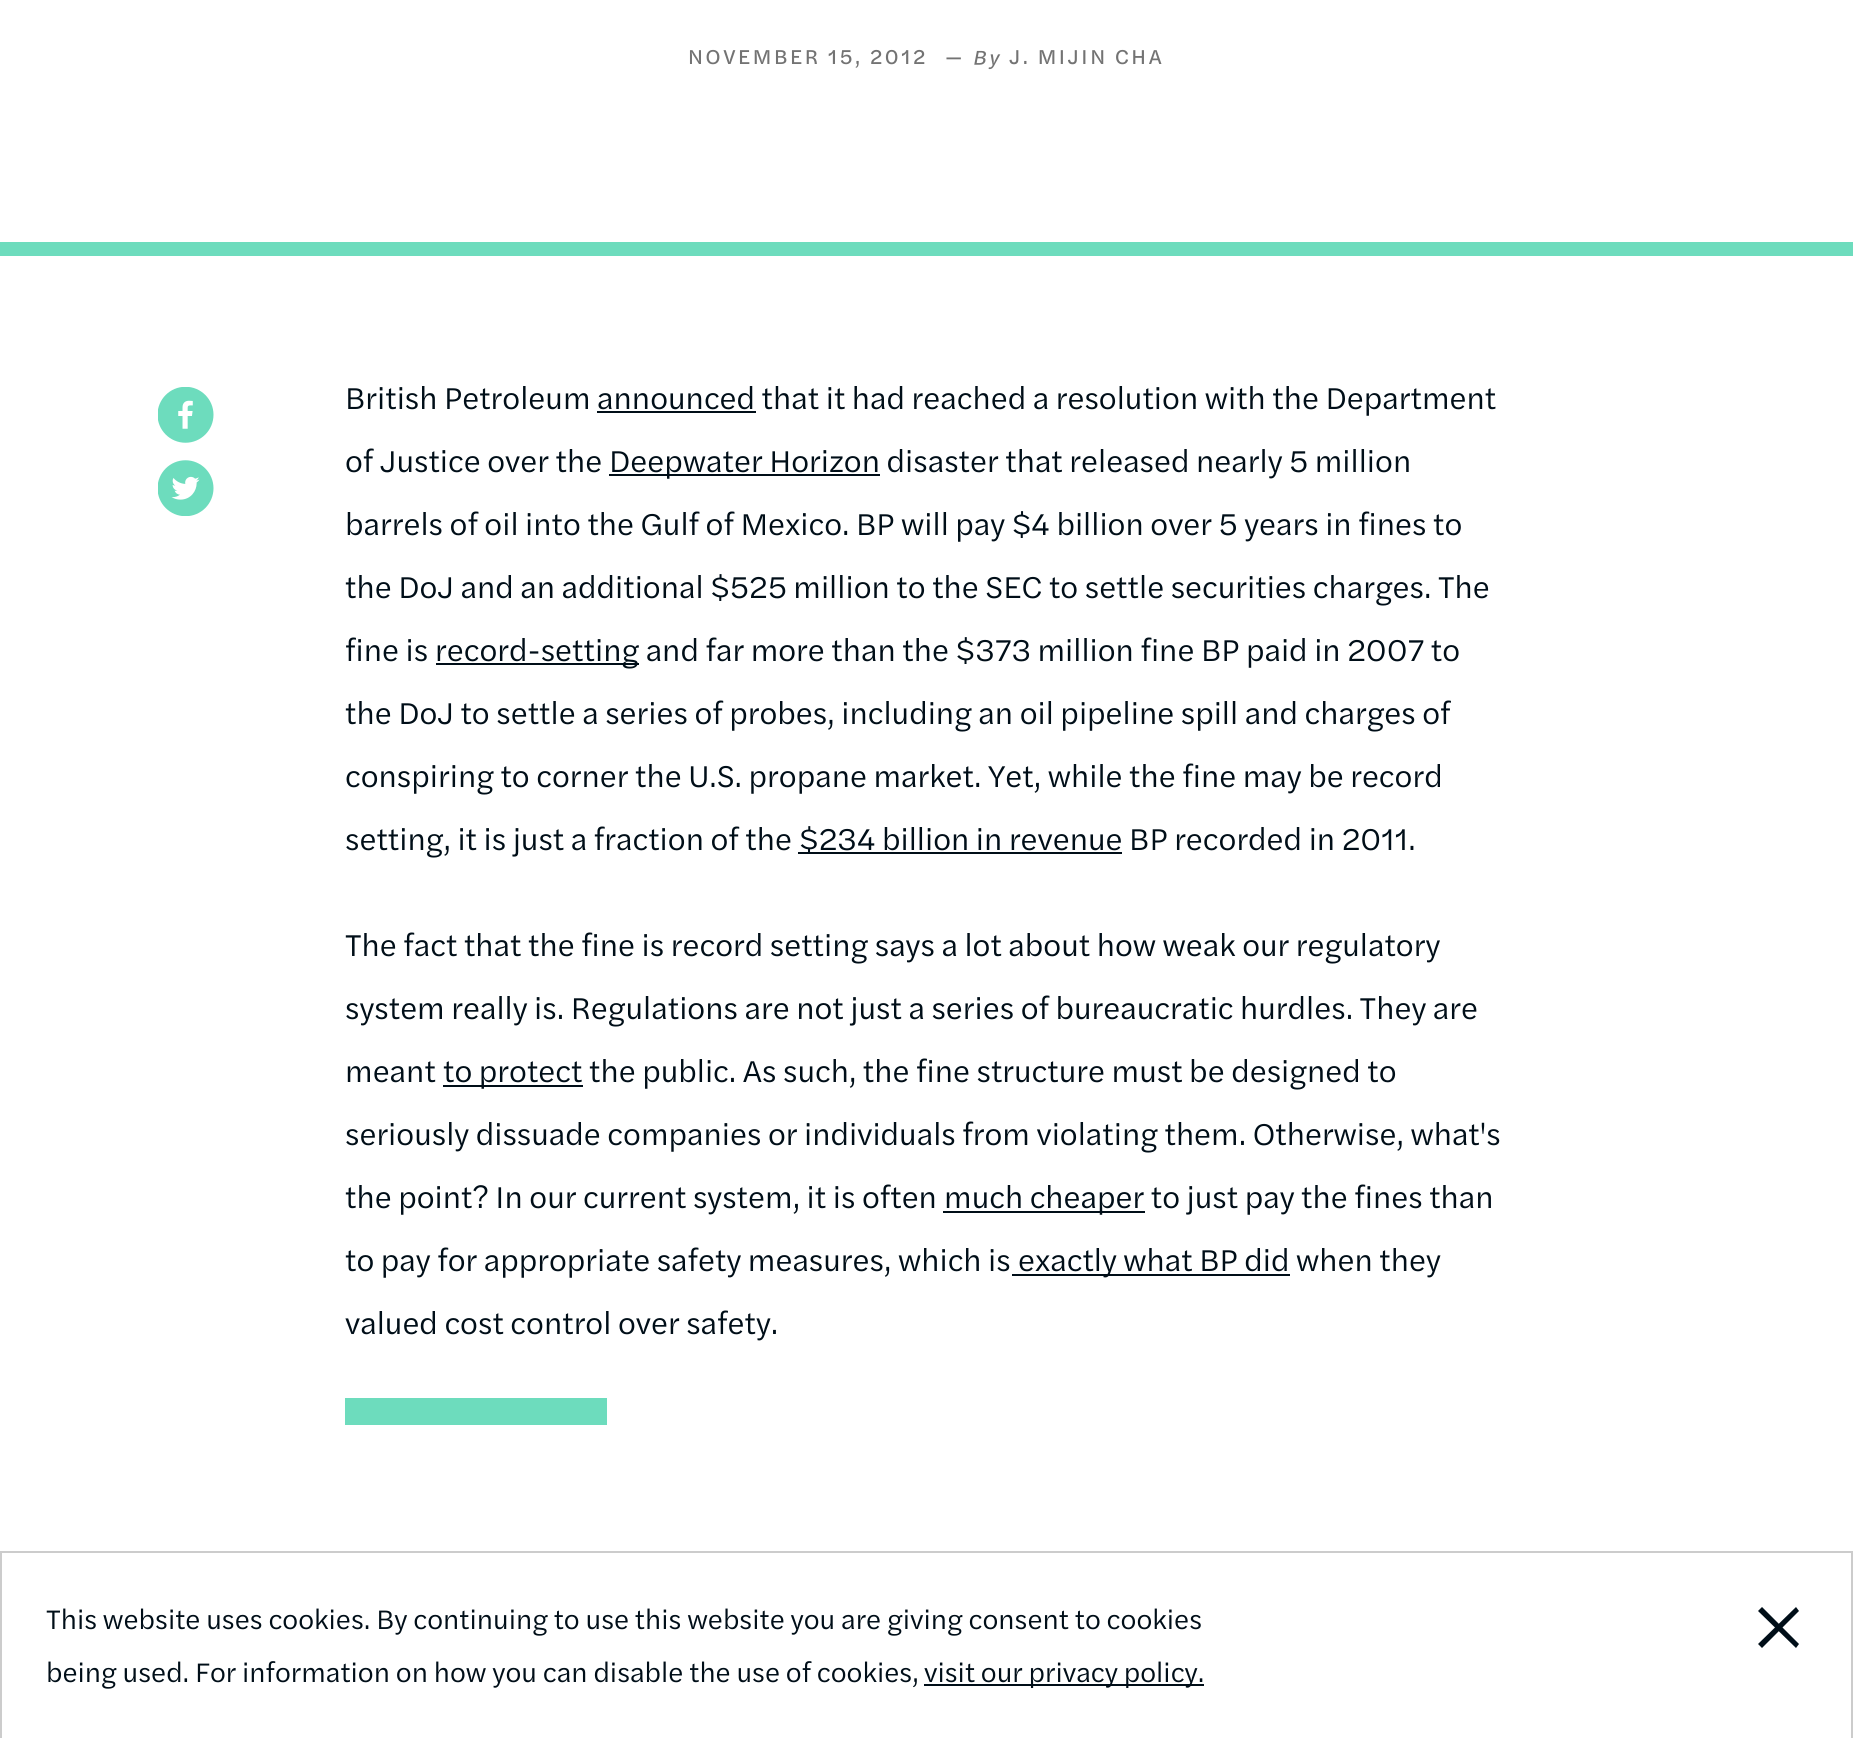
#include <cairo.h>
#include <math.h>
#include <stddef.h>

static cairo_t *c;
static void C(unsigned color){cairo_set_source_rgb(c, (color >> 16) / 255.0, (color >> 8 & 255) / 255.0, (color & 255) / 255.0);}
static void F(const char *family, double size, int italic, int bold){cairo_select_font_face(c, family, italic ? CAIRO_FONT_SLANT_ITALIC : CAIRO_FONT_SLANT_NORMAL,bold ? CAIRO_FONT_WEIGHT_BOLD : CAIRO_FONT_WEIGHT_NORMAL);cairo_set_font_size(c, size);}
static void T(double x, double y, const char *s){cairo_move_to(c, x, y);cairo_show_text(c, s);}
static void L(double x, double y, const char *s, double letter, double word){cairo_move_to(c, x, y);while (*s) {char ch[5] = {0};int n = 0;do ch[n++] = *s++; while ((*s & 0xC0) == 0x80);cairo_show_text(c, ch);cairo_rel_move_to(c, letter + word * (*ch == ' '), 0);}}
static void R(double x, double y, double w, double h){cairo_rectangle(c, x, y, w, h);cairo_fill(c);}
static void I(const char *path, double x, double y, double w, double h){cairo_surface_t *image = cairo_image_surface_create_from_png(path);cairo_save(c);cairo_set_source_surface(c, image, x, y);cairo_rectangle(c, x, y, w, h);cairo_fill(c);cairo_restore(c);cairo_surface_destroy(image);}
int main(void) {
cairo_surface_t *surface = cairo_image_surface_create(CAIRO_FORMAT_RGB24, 1853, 1738);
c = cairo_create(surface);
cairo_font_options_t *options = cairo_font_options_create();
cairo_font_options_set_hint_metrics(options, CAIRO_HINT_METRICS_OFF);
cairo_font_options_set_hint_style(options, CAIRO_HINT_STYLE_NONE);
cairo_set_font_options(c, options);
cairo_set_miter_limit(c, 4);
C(0xffffff);
cairo_paint(c);
C(0x6ddcbd);
R(0,242,1853,14);
F("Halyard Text",21,0,0);
C(0x737373);
L(688,64,"NOVEMBER 15, 2012",2.6,0);
L(945,64,"—",2.6,0);
I("1.png",974,50,27,20);
L(1009,64,"J. MIJIN CHA",2.6,0);
I("2.png",158,387,56,56);
I("3.png",158,460,56,56);
F("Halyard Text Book",31.5,0,0);
C(0x000e18);
T(345,409,"British Petroleum announced that it had reached a resolution with the Department");
R(597,411,159,2);
T(345,472,"of Justice over the");
R(609,474,271,2);
T(609,472,"Deepwater Horizon disaster that released nearly 5 million");
T(345,535,"barrels of oil into the Gulf of Mexico. BP will pay $4 billion over 5 years in fines to");
T(345,598,"the DoJ and an additional $525 million to the SEC to settle securities charges. The");
T(345,661,"fine is");
R(436,663,203,2);
T(435,661,"record-setting and far more than the $373 million fine BP paid in 2007 to");
T(345,724,"the DoJ to settle a series of probes, including an oil pipeline spill and charges of");
T(345,787,"conspiring to corner the U.S. propane market. Yet, while the fine may be record");
T(345,850,"setting, it is just a fraction of the");
R(798,852,324,2);
T(799,850,"$234 billion in revenue BP recorded in 2011.");
T(345,956,"The fact that the fine is record setting says a lot about how weak our regulatory");
T(345,1019,"system really is. Regulations are not just a series of bureaucratic hurdles. They are");
T(345,1082,"meant");
R(443,1085,140,2);
T(443,1082,"to protect the public. As such, the fine structure must be designed to");
T(345,1145,"seriously dissuade companies or individuals from violating them. Otherwise, what's");
T(345,1208,"the point? In our current system, it is often");
R(943,1211,202,2);
T(944,1208,"much cheaper to just pay the fines than");
T(345,1271,"to pay for appropriate safety measures, which is");
R(1012,1274,278,2);
T(1018,1271,"exactly what BP did when they");
T(345,1334,"valued cost control over safety.");
C(0x6ddcbd);
R(345,1398,262,27);
cairo_rectangle(c,1,1552,1851,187);
C(0xcccccc);
cairo_stroke(c);
F("Halyard Text Book",28,0,0);
C(0x000e18);
T(46,1629,"This website uses cookies. By continuing to use this website you are giving consent to cookies");
T(46,1682,"being used. For information on how you can disable the use of cookies,");
R(924,1684,280,2);
T(924,1682,"visit our privacy policy.");
cairo_new_path(c);
cairo_move_to(c,1796,1607);
cairo_line_to(c,1799,1611);
cairo_line_to(c,1762,1648);
cairo_line_to(c,1758,1644);
cairo_close_path(c);
cairo_fill(c);
cairo_new_path(c);
cairo_move_to(c,1758,1611);
cairo_line_to(c,1762,1607);
cairo_line_to(c,1799,1644);
cairo_line_to(c,1796,1648);
cairo_close_path(c);
cairo_fill(c);
cairo_surface_write_to_png(surface, "o.png");
cairo_font_options_destroy(options);
cairo_destroy(c);
cairo_surface_destroy(surface);
return 0;
}
